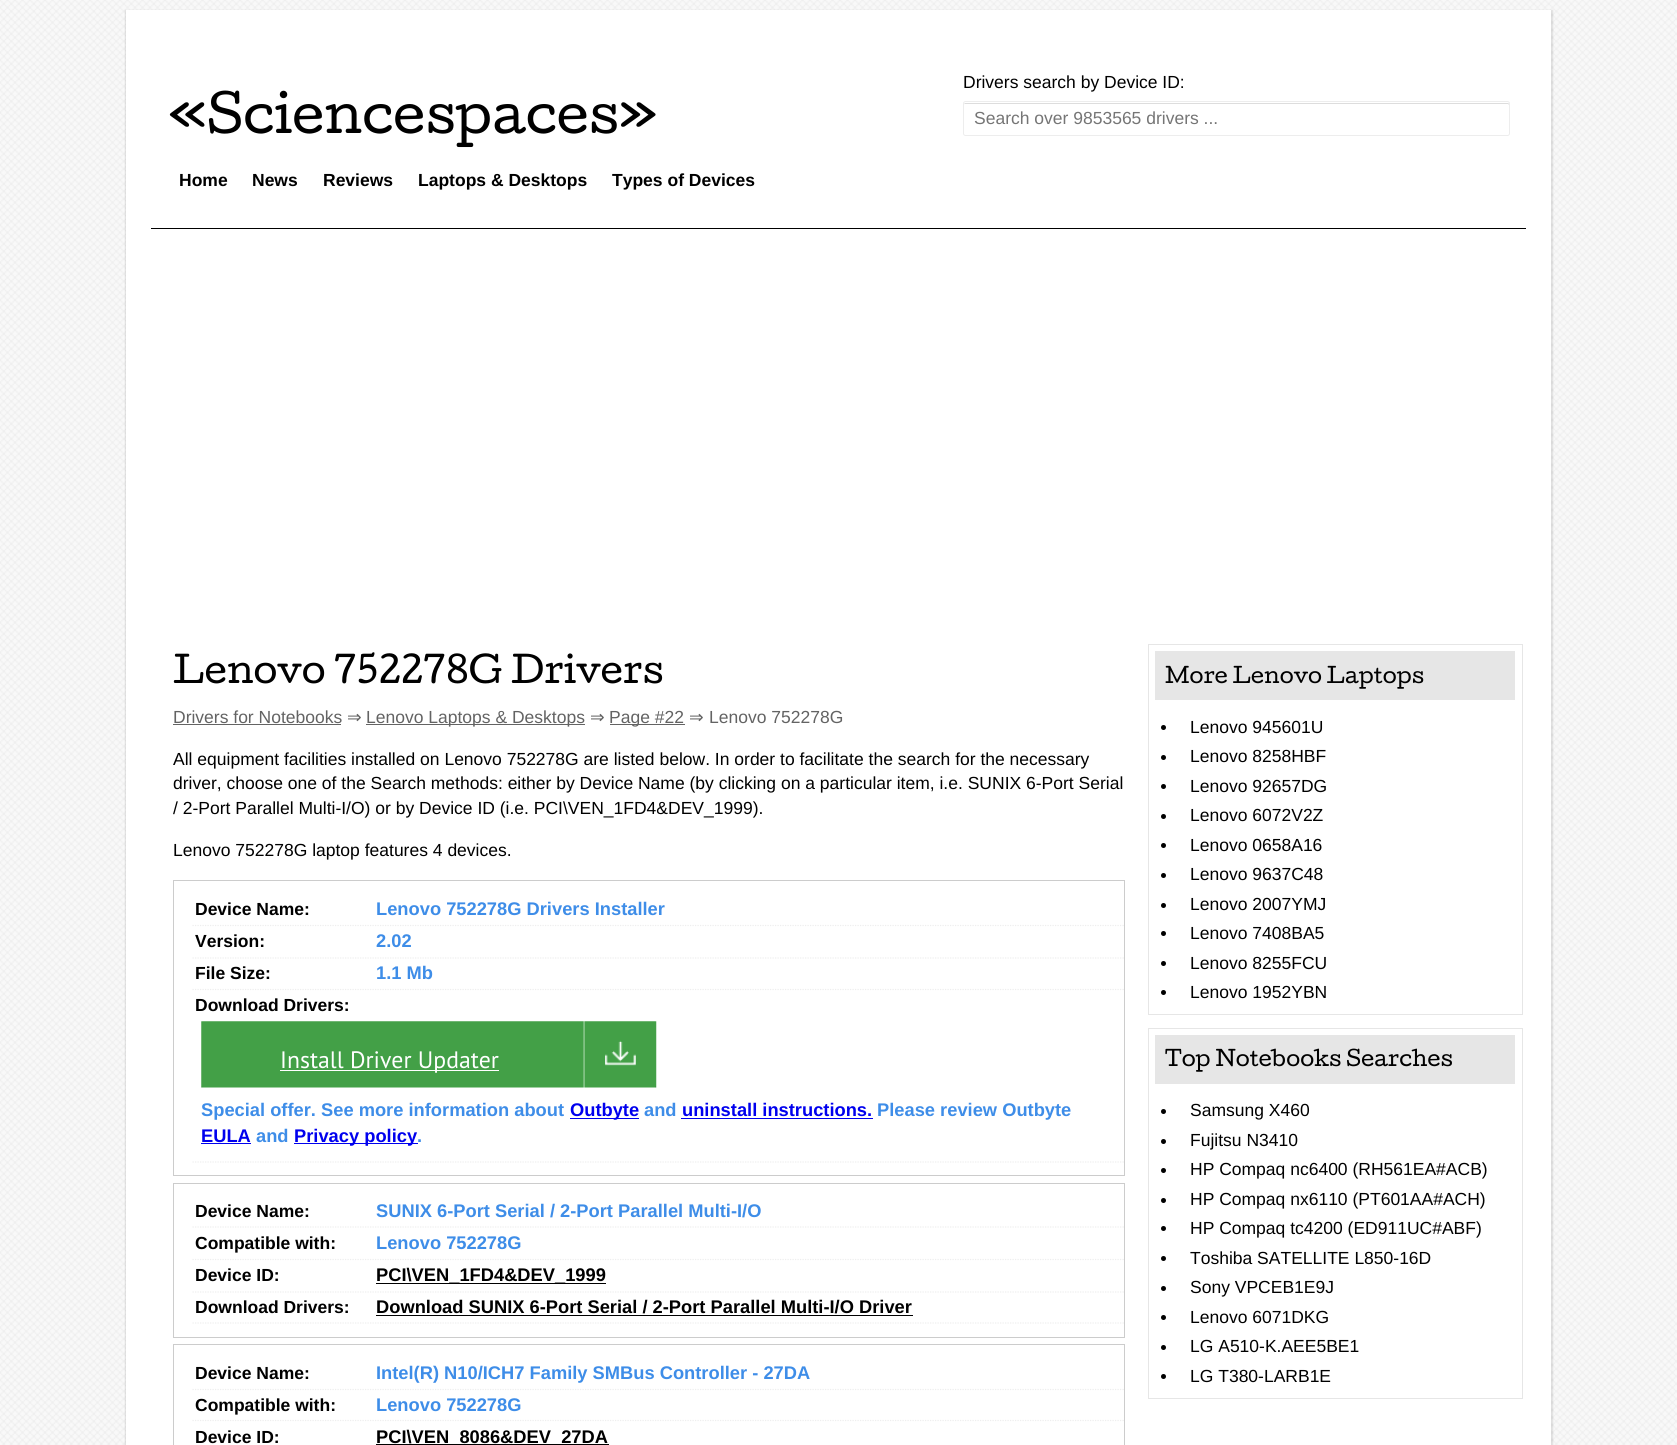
#include <cairo.h>
#include <math.h>
#include <stddef.h>

static cairo_t *c;
static void C(unsigned color){cairo_set_source_rgb(c, (color >> 16) / 255.0, (color >> 8 & 255) / 255.0, (color & 255) / 255.0);}
static void F(const char *family, double size, int italic, int bold){cairo_select_font_face(c, family, italic ? CAIRO_FONT_SLANT_ITALIC : CAIRO_FONT_SLANT_NORMAL,bold ? CAIRO_FONT_WEIGHT_BOLD : CAIRO_FONT_WEIGHT_NORMAL);cairo_set_font_size(c, size);}
static void T(double x, double y, const char *s){cairo_move_to(c, x, y);cairo_show_text(c, s);}
static void R(double x, double y, double w, double h){cairo_rectangle(c, x, y, w, h);cairo_fill(c);}
static void Q(double x, double y, double w, double h, double r){cairo_new_sub_path(c);cairo_arc(c, x + w - r, y + h - r, r, 0, M_PI / 2);cairo_arc(c, x + r, y + h - r, r, M_PI / 2, M_PI);cairo_arc(c, x + r, y + r, r, M_PI, 1.5 * M_PI);cairo_arc(c, x + w - r, y + r, r, 1.5 * M_PI, 2 * M_PI);cairo_close_path(c);}
static void S(double x, double y, double w, double h, double r, double blur, double alpha){cairo_push_group_with_content(c, CAIRO_CONTENT_ALPHA);cairo_set_operator(c, CAIRO_OPERATOR_SOURCE);for (int i = 15; i >= -15 && fmin(w, h) + blur * i / 3 > 0; i -= 2) {double e = blur * i / 6;cairo_set_source_rgba(c, 0, 0, 0, alpha * erfc((i - 1) / 8.5) / 2);Q(x - e, y - e, w + 2 * e, h + 2 * e, fmax(0, fmin(r + e + blur * .6, fmin(w, h) / 2 + e)));cairo_fill(c);}cairo_pattern_t *soft = cairo_pop_group(c);cairo_mask(c, soft);cairo_pattern_destroy(soft);}
static void I(const char *path, double x, double y, double w, double h){cairo_surface_t *image = cairo_image_surface_create_from_png(path);cairo_save(c);cairo_set_source_surface(c, image, x, y);cairo_rectangle(c, x, y, w, h);cairo_fill(c);cairo_restore(c);cairo_surface_destroy(image);}
int main(void) {
cairo_surface_t *surface = cairo_image_surface_create(CAIRO_FORMAT_RGB24, 1677, 1445);
c = cairo_create(surface);
cairo_font_options_t *options = cairo_font_options_create();
cairo_font_options_set_hint_metrics(options, CAIRO_HINT_METRICS_OFF);
cairo_font_options_set_hint_style(options, CAIRO_HINT_STYLE_NONE);
cairo_set_font_options(c, options);
cairo_set_miter_limit(c, 4);
C(0xffffff);
cairo_paint(c);
I("1.png",0,0,1677,1445);
C(0x000000);
S(125,10,1428,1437,0,.5,.1);
C(0xffffff);
R(126,10,1425,1435);
C(0x000000);
R(151,228,1375,1);
F("Cutive",50,0,0);
T(168,133,"«Sciencespaces»");
F("Liberation Sans",17.5,0,0);
T(963,88,"Drivers search by Device ID:");
C(0xdddddd);
cairo_new_path(c);
cairo_move_to(c,965,104);
cairo_line_to(c,1508,104);
cairo_line_to(c,1509,105);
cairo_curve_to(c,1509,104,1509,103,1508,103);
cairo_line_to(c,965,103);
cairo_line_to(c,964,104);
cairo_line_to(c,964,105);
cairo_curve_to(c,964,104,964,104,965,104);
cairo_close_path(c);
cairo_fill(c);
Q(963.5,101.5,546,34,2);
C(0xededed);
cairo_set_line_width(c,1);
cairo_stroke(c);
C(0x757575);
T(974,124,"Search over 9853565 drivers ...");
F("Liberation Sans",17.5,0,1);
C(0x000000);
T(179,186,"Home");
T(252,186,"News");
T(323,186,"Reviews");
T(418,186,"Laptops & Desktops");
T(612,186,"Types of Devices");
F("Cutive",35,0,0);
T(173,683,"Lenovo 752278G Drivers");
F("Liberation Sans",17.5,0,0);
C(0x636363);
T(173,723,"Drivers for Notebooks");
R(173,724,168,1);
F("DejaVu Sans",17.5,0,0);
T(347,723,"⇒");
R(366,724,219,1);
F("Liberation Sans",17.5,0,0);
T(366,723,"Lenovo Laptops & Desktops");
F("DejaVu Sans",17.5,0,0);
T(590,723,"⇒");
R(610,724,75,1);
F("Liberation Sans",17.5,0,0);
T(609,723,"Page #22");
F("DejaVu Sans",17.5,0,0);
T(689,723,"⇒");
F("Liberation Sans",17.5,0,0);
T(709,723,"Lenovo 752278G");
C(0x000000);
T(173,765,"All equipment facilities installed on Lenovo 752278G are listed below. In order to facilitate the search for the necessary");
T(173,789,"driver, choose one of the Search methods: either by Device Name (by clicking on a particular item, i.e. SUNIX 6-Port Serial");
T(173,814,"/ 2-Port Parallel Multi-I/O) or by Device ID (i.e. PCI\\VEN_1FD4&DEV_1999).");
T(173,856,"Lenovo 752278G laptop features 4 devices.");
cairo_rectangle(c,173.5,880.5,951,295);
C(0xcccccc);
cairo_stroke(c);
cairo_new_path(c);
cairo_move_to(c,192.5,925.5);
cairo_line_to(c,1124,925.5);
C(0xeeeeee);
cairo_set_line_width(c,1.2);
cairo_set_dash(c,(double[]){1.25,1.25},2,0);
cairo_stroke(c);
F("Liberation Sans",17.5,0,1);
C(0x000000);
T(195,915,"Device Name:");
F("Liberation Sans",18.3,0,1);
C(0x3e8de8);
T(376,915,"Lenovo 752278G Drivers Installer");
cairo_new_path(c);
cairo_move_to(c,192.5,958);
cairo_line_to(c,1124,958);
C(0xeeeeee);
cairo_stroke(c);
F("Liberation Sans",17.5,0,1);
C(0x000000);
T(195,947,"Version:");
F("Liberation Sans",18.3,0,1);
C(0x3e8de8);
T(376,947,"2.02");
cairo_new_path(c);
cairo_move_to(c,192.5,989.5);
cairo_line_to(c,1124,989.5);
C(0xeeeeee);
cairo_stroke(c);
F("Liberation Sans",17.5,0,1);
C(0x000000);
T(195,979,"File Size:");
F("Liberation Sans",18.3,0,1);
C(0x3e8de8);
T(376,979,"1.1 Mb");
cairo_new_path(c);
cairo_move_to(c,192.5,1162);
cairo_line_to(c,1124,1162);
C(0xeeeeee);
cairo_stroke(c);
F("Liberation Sans",17.5,0,1);
C(0x000000);
T(195,1011,"Download Drivers:");
I("2.png",201,1021,456,67);
C(0xffffff);
R(280,1070,219,1);
F("PT Sans",23.75,0,0);
T(280,1068,"Install Driver Updater");
F("Liberation Sans",18.3,0,1);
C(0x3e8de8);
T(201,1116,"Special offer. See more information about");
C(0x0000ee);
R(570,1118,69,1);
T(570,1116,"Outbyte");
C(0x3e8de8);
T(644,1116,"and");
C(0x0000ee);
T(682,1116,"uninstall instructions.");
R(681,1118,192,1);
C(0x3e8de8);
T(877,1116,"Please review Outbyte");
C(0x0000ee);
T(201,1142,"EULA");
R(201,1143,50,1);
C(0x3e8de8);
T(256,1142,"and");
C(0x0000ee);
R(294,1143,124,1);
T(294,1142,"Privacy policy");
C(0x3e8de8);
T(417,1142,".");
cairo_rectangle(c,173.5,1183.5,951,154);
C(0xcccccc);
cairo_set_line_width(c,1);
cairo_set_dash(c,NULL,0,0);
cairo_stroke(c);
cairo_new_path(c);
cairo_move_to(c,192.5,1227);
cairo_line_to(c,1124,1227);
C(0xeeeeee);
cairo_set_line_width(c,1.2);
cairo_set_dash(c,(double[]){1.25,1.25},2,0);
cairo_stroke(c);
F("Liberation Sans",17.5,0,1);
C(0x000000);
T(195,1217,"Device Name:");
F("Liberation Sans",18.3,0,1);
C(0x3e8de8);
T(376,1217,"SUNIX 6-Port Serial / 2-Port Parallel Multi-I/O");
cairo_new_path(c);
cairo_move_to(c,192.5,1259.5);
cairo_line_to(c,1124,1259.5);
C(0xeeeeee);
cairo_stroke(c);
F("Liberation Sans",17.5,0,1);
C(0x000000);
T(195,1249,"Compatible with:");
F("Liberation Sans",18.3,0,1);
C(0x3e8de8);
T(376,1249,"Lenovo 752278G");
cairo_new_path(c);
cairo_move_to(c,192.5,1292);
cairo_line_to(c,1124,1292);
C(0xeeeeee);
cairo_stroke(c);
F("Liberation Sans",17.5,0,1);
C(0x000000);
T(195,1281,"Device ID:");
R(376,1283,230,1);
F("Liberation Sans",18.3,0,1);
T(376,1281,"PCI\\VEN_1FD4&DEV_1999");
cairo_new_path(c);
cairo_move_to(c,192.5,1323);
cairo_line_to(c,1124,1323);
C(0xeeeeee);
cairo_stroke(c);
F("Liberation Sans",17.5,0,1);
C(0x000000);
T(195,1313,"Download Drivers:");
F("Liberation Sans",18.3,0,1);
T(376,1313,"Download SUNIX 6-Port Serial / 2-Port Parallel Multi-I/O Driver");
R(376,1315,537,1);
cairo_rectangle(c,173.5,1344.5,951,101);
C(0xcccccc);
cairo_set_line_width(c,1);
cairo_set_dash(c,NULL,0,0);
cairo_stroke(c);
cairo_new_path(c);
cairo_move_to(c,192.5,1389.5);
cairo_line_to(c,1124,1389.5);
C(0xeeeeee);
cairo_set_line_width(c,1.2);
cairo_set_dash(c,(double[]){1.25,1.25},2,0);
cairo_stroke(c);
F("Liberation Sans",17.5,0,1);
C(0x000000);
T(195,1379,"Device Name:");
F("Liberation Sans",18.3,0,1);
C(0x3e8de8);
T(376,1379,"Intel(R) N10/ICH7 Family SMBus Controller - 27DA");
cairo_new_path(c);
cairo_move_to(c,192.5,1420.5);
cairo_line_to(c,1124,1420.5);
C(0xeeeeee);
cairo_stroke(c);
F("Liberation Sans",17.5,0,1);
C(0x000000);
T(195,1411,"Compatible with:");
F("Liberation Sans",18.3,0,1);
C(0x3e8de8);
T(376,1411,"Lenovo 752278G");
F("Liberation Sans",17.5,0,1);
C(0x000000);
T(195,1443,"Device ID:");
R(376,1444,233,1);
F("Liberation Sans",18.3,0,1);
T(376,1443,"PCI\\VEN_8086&DEV_27DA");
cairo_rectangle(c,1148.5,644.5,374,370);
C(0xe6e6e6);
cairo_set_line_width(c,1);
cairo_set_dash(c,NULL,0,0);
cairo_stroke(c);
R(1155,651,360,49);
F("Cutive",20.5,0,0);
C(0x000000);
T(1165,683,"More Lenovo Laptops");
cairo_new_path(c);
cairo_arc(c,1163.5,727.5,2.5,0,2 * M_PI);
cairo_fill(c);
F("Liberation Sans",17.5,0,0);
T(1190,733,"Lenovo 945601U");
cairo_new_path(c);
cairo_arc(c,1163.5,757.5,2.5,0,2 * M_PI);
cairo_fill(c);
T(1190,762,"Lenovo 8258HBF");
cairo_new_path(c);
cairo_arc(c,1163.5,786.5,2.5,0,2 * M_PI);
cairo_fill(c);
T(1190,792,"Lenovo 92657DG");
cairo_new_path(c);
cairo_arc(c,1163.5,816.5,2.5,0,2 * M_PI);
cairo_fill(c);
T(1190,821,"Lenovo 6072V2Z");
cairo_new_path(c);
cairo_arc(c,1163.5,845.5,2.5,0,2 * M_PI);
cairo_fill(c);
T(1190,851,"Lenovo 0658A16");
cairo_new_path(c);
cairo_arc(c,1163.5,875.5,2.5,0,2 * M_PI);
cairo_fill(c);
T(1190,880,"Lenovo 9637C48");
cairo_new_path(c);
cairo_arc(c,1163.5,905.5,2.5,0,2 * M_PI);
cairo_fill(c);
T(1190,910,"Lenovo 2007YMJ");
cairo_new_path(c);
cairo_arc(c,1163.5,933.5,2.5,0,2 * M_PI);
cairo_fill(c);
T(1190,939,"Lenovo 7408BA5");
cairo_new_path(c);
cairo_arc(c,1163.5,963.5,2.5,0,2 * M_PI);
cairo_fill(c);
T(1190,969,"Lenovo 8255FCU");
cairo_new_path(c);
cairo_arc(c,1163.5,992.5,2.5,0,2 * M_PI);
cairo_fill(c);
T(1190,998,"Lenovo 1952YBN");
cairo_rectangle(c,1148.5,1028.5,374,370);
C(0xe6e6e6);
cairo_stroke(c);
R(1155,1035,360,49);
F("Cutive",20.5,0,0);
C(0x000000);
T(1165,1066,"Top Notebooks Searches");
cairo_new_path(c);
cairo_arc(c,1163.5,1111.5,2.5,0,2 * M_PI);
cairo_fill(c);
F("Liberation Sans",17.5,0,0);
T(1190,1116,"Samsung X460");
cairo_new_path(c);
cairo_arc(c,1163.5,1141.5,2.5,0,2 * M_PI);
cairo_fill(c);
T(1190,1146,"Fujitsu N3410");
cairo_new_path(c);
cairo_arc(c,1163.5,1170.5,2.5,0,2 * M_PI);
cairo_fill(c);
T(1190,1175,"HP Compaq nc6400 (RH561EA#ACB)");
cairo_new_path(c);
cairo_arc(c,1163.5,1200.5,2.5,0,2 * M_PI);
cairo_fill(c);
T(1190,1205,"HP Compaq nx6110 (PT601AA#ACH)");
cairo_new_path(c);
cairo_arc(c,1163.5,1228.5,2.5,0,2 * M_PI);
cairo_fill(c);
T(1190,1234,"HP Compaq tc4200 (ED911UC#ABF)");
cairo_new_path(c);
cairo_arc(c,1163.5,1258.5,2.5,0,2 * M_PI);
cairo_fill(c);
T(1190,1264,"Toshiba SATELLITE L850-16D");
cairo_new_path(c);
cairo_arc(c,1163.5,1288.5,2.5,0,2 * M_PI);
cairo_fill(c);
T(1190,1293,"Sony VPCEB1E9J");
cairo_new_path(c);
cairo_arc(c,1163.5,1317.5,2.5,0,2 * M_PI);
cairo_fill(c);
T(1190,1323,"Lenovo 6071DKG");
cairo_new_path(c);
cairo_arc(c,1163.5,1347.5,2.5,0,2 * M_PI);
cairo_fill(c);
T(1190,1352,"LG A510-K.AEE5BE1");
cairo_new_path(c);
cairo_arc(c,1163.5,1376.5,2.5,0,2 * M_PI);
cairo_fill(c);
T(1190,1382,"LG T380-LARB1E");
cairo_surface_write_to_png(surface, "o.png");
cairo_font_options_destroy(options);
cairo_destroy(c);
cairo_surface_destroy(surface);
return 0;
}
